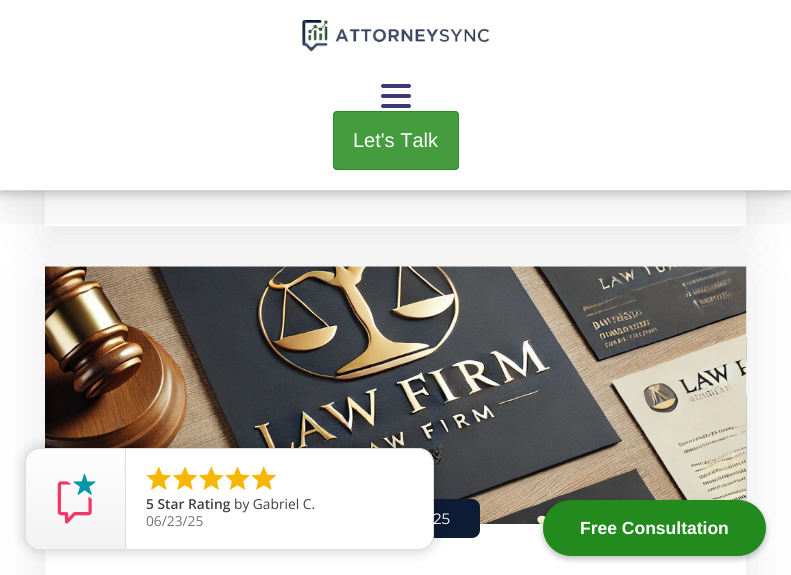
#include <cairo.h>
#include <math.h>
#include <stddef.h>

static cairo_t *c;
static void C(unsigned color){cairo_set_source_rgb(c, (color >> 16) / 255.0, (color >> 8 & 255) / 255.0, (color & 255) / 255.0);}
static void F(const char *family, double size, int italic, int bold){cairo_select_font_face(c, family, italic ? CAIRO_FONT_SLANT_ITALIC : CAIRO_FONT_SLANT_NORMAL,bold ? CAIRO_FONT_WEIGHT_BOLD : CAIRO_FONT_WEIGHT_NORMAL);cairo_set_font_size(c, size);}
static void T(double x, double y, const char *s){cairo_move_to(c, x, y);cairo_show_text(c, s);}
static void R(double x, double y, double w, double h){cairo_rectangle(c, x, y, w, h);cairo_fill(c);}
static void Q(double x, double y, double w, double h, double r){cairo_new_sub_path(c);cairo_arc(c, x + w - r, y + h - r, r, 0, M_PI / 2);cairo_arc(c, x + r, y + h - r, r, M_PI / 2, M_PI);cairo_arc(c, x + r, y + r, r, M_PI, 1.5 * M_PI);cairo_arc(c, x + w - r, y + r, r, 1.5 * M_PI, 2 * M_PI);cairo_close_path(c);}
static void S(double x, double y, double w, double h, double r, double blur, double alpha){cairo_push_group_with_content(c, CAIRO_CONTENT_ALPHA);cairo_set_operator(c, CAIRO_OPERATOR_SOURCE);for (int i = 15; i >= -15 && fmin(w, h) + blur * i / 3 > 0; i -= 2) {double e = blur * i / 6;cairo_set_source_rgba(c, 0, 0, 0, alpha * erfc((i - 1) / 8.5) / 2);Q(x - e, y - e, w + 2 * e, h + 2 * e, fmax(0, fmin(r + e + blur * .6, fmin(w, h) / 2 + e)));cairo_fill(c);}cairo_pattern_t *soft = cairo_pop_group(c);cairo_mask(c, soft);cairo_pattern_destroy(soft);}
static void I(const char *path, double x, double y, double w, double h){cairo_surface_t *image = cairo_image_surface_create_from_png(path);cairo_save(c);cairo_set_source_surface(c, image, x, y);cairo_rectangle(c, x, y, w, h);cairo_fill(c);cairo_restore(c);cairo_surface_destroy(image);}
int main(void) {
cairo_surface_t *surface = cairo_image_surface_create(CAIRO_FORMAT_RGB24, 791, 575);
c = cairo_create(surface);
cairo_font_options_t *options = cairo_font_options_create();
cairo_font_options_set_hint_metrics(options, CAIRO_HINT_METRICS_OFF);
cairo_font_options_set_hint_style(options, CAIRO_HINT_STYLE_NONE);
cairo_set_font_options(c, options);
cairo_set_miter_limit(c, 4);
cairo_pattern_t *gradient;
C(0xffffff);
cairo_paint(c);
C(0x000000);
S(0,0,791,191,0,6,.3);
cairo_save(c);
cairo_set_fill_rule(c,CAIRO_FILL_RULE_EVEN_ODD);
cairo_new_path(c);
cairo_move_to(c,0,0);
cairo_line_to(c,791,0);
cairo_line_to(c,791,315);
cairo_line_to(c,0,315);
cairo_close_path(c);
cairo_move_to(c,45,-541);
cairo_line_to(c,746,-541);
cairo_line_to(c,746,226);
cairo_line_to(c,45,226);
cairo_close_path(c);
cairo_clip(c);
S(45,-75,701,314,0,25,.1);
cairo_restore(c);
C(0xffffff);
R(0,0,791,190);
C(0xe6e6e6);
R(0,190,791,1);
C(0x000000);
S(45,279,701,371,0,25,.1);
C(0xffffff);
R(45,266,701,309);
I("7.png",45,266,702,236);
I("8.png",45,266,702,258);
cairo_save(c);
cairo_rectangle(c,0,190,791,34);
cairo_clip(c);
C(0x000000);
S(0,13,791,190,0,25,.1);
cairo_restore(c);
I("1.png",302,20,188,32);
C(0x3c3876);
Q(381,84,30,4,2);
cairo_fill(c);
Q(381,94,30,4,2);
cairo_fill(c);
Q(381,104,30,4,2);
cairo_fill(c);
C(0x449c3f);
Q(333,111,126,59,4);
cairo_fill(c);
Q(333.5,111.5,125,58,3.5);
cairo_set_source_rgba(c,0.137,0.545,0.114,0.85);
cairo_set_line_width(c,1);
cairo_stroke(c);
F("Liberation Sans",20,0,0);
C(0xffffff);
T(353,147,"Let's Talk");
C(0x0e1b35);
Q(311,499,169,39,8);
cairo_fill(c);
C(0x000000);
S(23,445,413,108,18,6,.15);
C(0xffffff);
Q(25.5,448.5,408,101,14.5);
cairo_fill_preserve(c);
C(0xdddddd);
cairo_stroke(c);
gradient = cairo_pattern_create_linear(76,449,76,549);
cairo_pattern_add_color_stop_rgba(gradient,0,0.996,0.996,0.996,1);
cairo_pattern_add_color_stop_rgba(gradient,1,0.949,0.949,0.949,1);
cairo_set_source(c,gradient);
cairo_pattern_destroy(gradient);
cairo_new_path(c);
cairo_move_to(c,40,449);
cairo_line_to(c,126,449);
cairo_line_to(c,126,549);
cairo_line_to(c,40,549);
cairo_curve_to(c,32.5,549,26,542.5,26,535);
cairo_line_to(c,26,463);
cairo_curve_to(c,26,455.5,32.5,449,40,449);
cairo_close_path(c);
cairo_fill(c);
C(0xdddddd);
R(125,449,1,100);
I("2.png",57,474,39,50);
I("3.png",146,466,26,24);
I("4.png",172,466,26,24);
I("5.png",198,466,26,24);
I("6.png",225,466,25,24);
I("3.png",251,466,26,24);
F("Open Sans SemiBold",13.75,0,0);
C(0x404040);
T(146,509,"5 Star Rating");
F("Open Sans",13.75,0,0);
T(234,509,"by Gabriel C.");
C(0x737373);
T(146,526,"06/23/25");
F("Montserrat",15,0,0);
C(0xffffff);
T(433,524,"25");
C(0x000000);
S(543,503,223,56,28,3,.25);
C(0x238b1d);
Q(543,500,223,56,28);
cairo_fill(c);
F("Liberation Sans",17.5,0,1);
C(0xffffff);
T(580,534,"Free Consultation");
cairo_surface_write_to_png(surface, "o.png");
cairo_font_options_destroy(options);
cairo_destroy(c);
cairo_surface_destroy(surface);
return 0;
}
